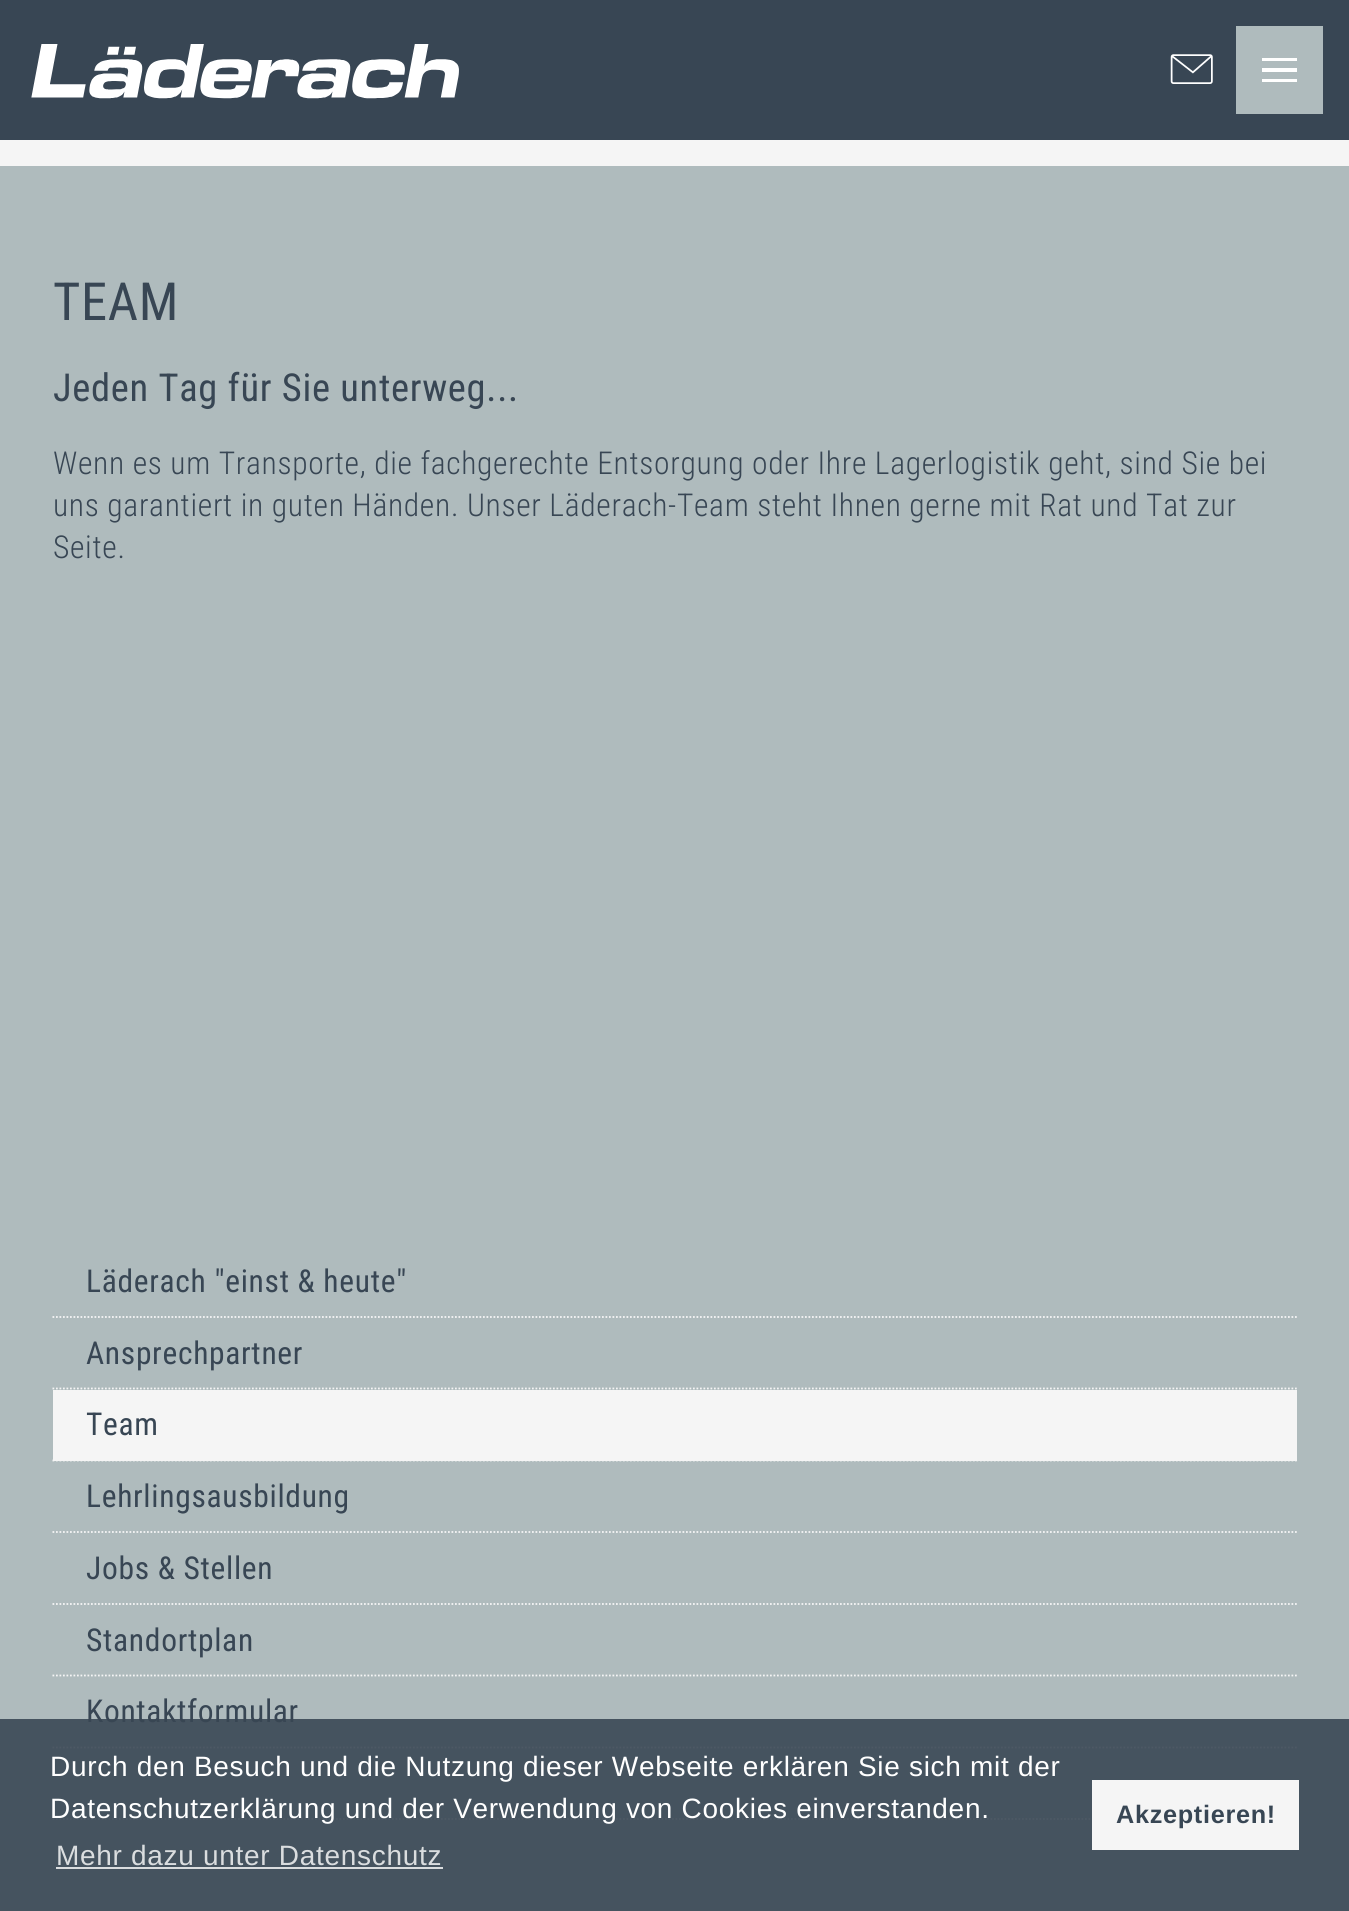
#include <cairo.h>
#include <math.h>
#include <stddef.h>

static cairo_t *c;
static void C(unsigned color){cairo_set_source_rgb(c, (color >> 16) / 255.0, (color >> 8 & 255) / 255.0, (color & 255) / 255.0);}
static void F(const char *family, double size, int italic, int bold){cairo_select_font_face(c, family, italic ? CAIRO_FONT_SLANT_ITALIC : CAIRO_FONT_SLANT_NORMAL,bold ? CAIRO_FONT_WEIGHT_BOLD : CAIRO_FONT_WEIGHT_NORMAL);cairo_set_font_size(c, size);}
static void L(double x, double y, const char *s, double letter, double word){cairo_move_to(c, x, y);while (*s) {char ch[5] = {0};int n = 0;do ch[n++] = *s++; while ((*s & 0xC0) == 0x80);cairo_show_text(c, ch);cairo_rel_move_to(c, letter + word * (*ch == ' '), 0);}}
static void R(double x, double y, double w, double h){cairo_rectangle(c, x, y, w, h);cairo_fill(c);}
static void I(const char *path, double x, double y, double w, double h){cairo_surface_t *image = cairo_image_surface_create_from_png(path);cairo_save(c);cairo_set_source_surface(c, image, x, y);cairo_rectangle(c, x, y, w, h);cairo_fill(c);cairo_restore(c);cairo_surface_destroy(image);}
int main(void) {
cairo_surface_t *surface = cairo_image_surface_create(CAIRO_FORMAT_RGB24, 1349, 1911);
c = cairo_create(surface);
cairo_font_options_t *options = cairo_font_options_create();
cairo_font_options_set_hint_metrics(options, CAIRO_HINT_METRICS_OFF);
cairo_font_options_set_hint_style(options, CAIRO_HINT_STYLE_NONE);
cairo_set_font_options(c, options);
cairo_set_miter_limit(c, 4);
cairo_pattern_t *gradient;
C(0xffffff);
cairo_paint(c);
gradient = cairo_pattern_create_linear(675,0,675,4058);
cairo_pattern_add_color_stop_rgba(gradient,.5,0.686,0.733,0.741,1);
cairo_pattern_add_color_stop_rgba(gradient,1,0.961,0.961,0.961,1);
cairo_set_source(c,gradient);
cairo_pattern_destroy(gradient);
R(0,166,1349,1745);
C(0x384654);
R(0,0,1349,140);
C(0xf5f5f5);
R(0,140,1349,26);
I("1.png",31,44,428,55);
I("2.png",1170,54,43,30);
C(0xafbbbd);
R(1236,26,87,88);
C(0xffffff);
R(1262,58,35,3);
R(1262,68,35,4);
R(1262,79,35,3);
F("Roboto Condensed",52.5,0,0);
C(0x384654);
L(53,320,"TEAM",.7,0);
F("Roboto Condensed",38.5,0,0);
L(53,401,"Jeden Tag für Sie unterweg...",.7,0);
F("Roboto Condensed Light",31.5,0,0);
L(53,474,"Wenn es um Transporte, die fachgerechte Entsorgung oder Ihre Lagerlogistik geht, sind Sie bei",.7,0);
L(53,516,"uns garantiert in guten Händen. Unser Läderach-Team steht Ihnen gerne mit Rat und Tat zur",.7,0);
L(53,558,"Seite.",.7,0);
cairo_new_path(c);
cairo_move_to(c,52.5,1317);
cairo_line_to(c,1297,1317);
C(0xf5f5f5);
cairo_set_line_width(c,1.8);
cairo_set_dash(c,(double[]){1.75,1.75},2,0);
cairo_stroke(c);
F("Roboto Condensed",31.5,0,0);
C(0x384654);
L(86,1292,"Läderach \"einst & heute\"",.7,0);
cairo_new_path(c);
cairo_move_to(c,52.5,1388.5);
cairo_line_to(c,1297,1388.5);
C(0xf5f5f5);
cairo_stroke(c);
C(0x384654);
L(86,1364,"Ansprechpartner",.7,0);
C(0xf5f5f5);
R(53,1390,1244,71);
cairo_new_path(c);
cairo_move_to(c,52.5,1460.5);
cairo_line_to(c,1297,1460.5);
cairo_stroke(c);
C(0x384654);
L(86,1435,"Team",.7,0);
cairo_new_path(c);
cairo_move_to(c,52.5,1532);
cairo_line_to(c,1297,1532);
C(0xf5f5f5);
cairo_stroke(c);
C(0x384654);
L(86,1507,"Lehrlingsausbildung",.7,0);
cairo_new_path(c);
cairo_move_to(c,52.5,1604);
cairo_line_to(c,1297,1604);
C(0xf5f5f5);
cairo_stroke(c);
C(0x384654);
L(86,1579,"Jobs & Stellen",.7,0);
cairo_new_path(c);
cairo_move_to(c,52.5,1675.5);
cairo_line_to(c,1297,1675.5);
C(0xf5f5f5);
cairo_stroke(c);
C(0x384654);
L(86,1651,"Standortplan",.7,0);
cairo_new_path(c);
cairo_move_to(c,52.5,1747.5);
cairo_line_to(c,1297,1747.5);
C(0xf5f5f5);
cairo_stroke(c);
C(0x384654);
L(86,1722,"Kontaktformular",.7,0);
cairo_new_path(c);
cairo_move_to(c,52.5,1819);
cairo_line_to(c,1297,1819);
C(0xf5f5f5);
cairo_stroke(c);
cairo_set_source_rgba(c,0.22,0.275,0.329,0.89);
R(0,1719,1349,192);
F("Liberation Sans",28,0,0);
C(0xffffff);
L(50,1776,"Durch den Besuch und die Nutzung dieser Webseite erklären Sie sich mit der",.7,0);
L(50,1818,"Datenschutzerklärung und der Verwendung von Cookies einverstanden.",.7,0);
C(0xdadddf);
L(56,1865,"Mehr dazu unter Datenschutz",.7,0);
R(56,1867,387,2);
C(0xf5f5f5);
R(1092,1780,207,70);
F("Liberation Sans",25.25,0,1);
C(0x384654);
L(1116,1823,"Akzeptieren!",.7,0);
cairo_surface_write_to_png(surface, "o.png");
cairo_font_options_destroy(options);
cairo_destroy(c);
cairo_surface_destroy(surface);
return 0;
}
